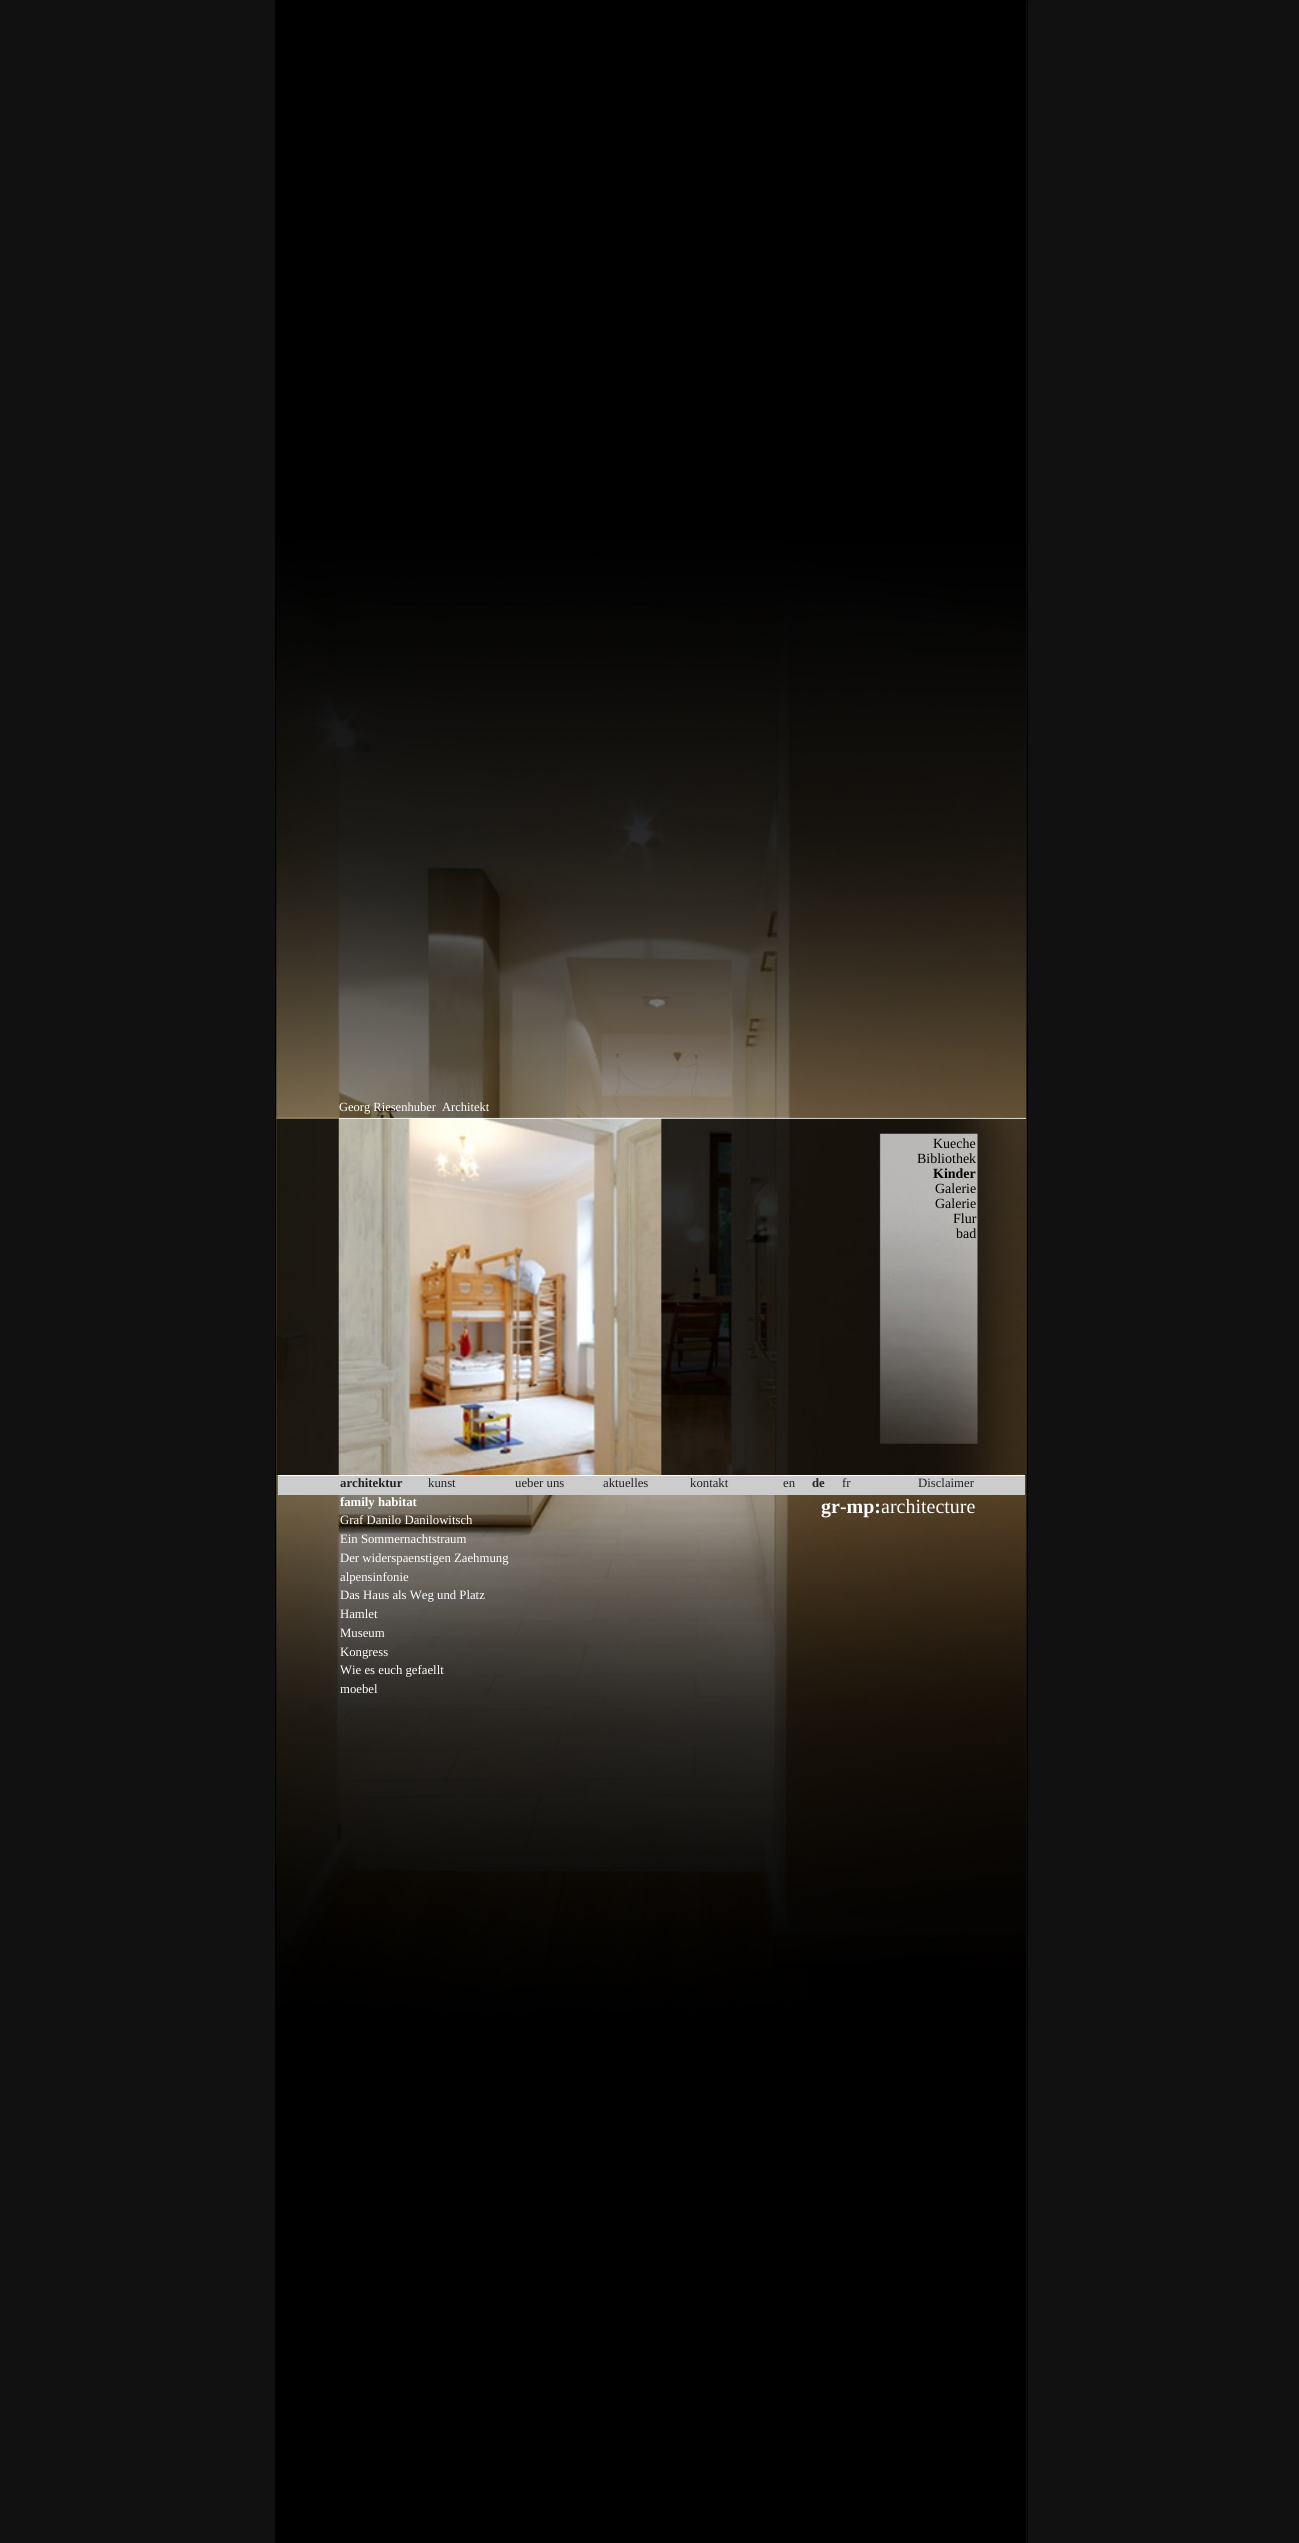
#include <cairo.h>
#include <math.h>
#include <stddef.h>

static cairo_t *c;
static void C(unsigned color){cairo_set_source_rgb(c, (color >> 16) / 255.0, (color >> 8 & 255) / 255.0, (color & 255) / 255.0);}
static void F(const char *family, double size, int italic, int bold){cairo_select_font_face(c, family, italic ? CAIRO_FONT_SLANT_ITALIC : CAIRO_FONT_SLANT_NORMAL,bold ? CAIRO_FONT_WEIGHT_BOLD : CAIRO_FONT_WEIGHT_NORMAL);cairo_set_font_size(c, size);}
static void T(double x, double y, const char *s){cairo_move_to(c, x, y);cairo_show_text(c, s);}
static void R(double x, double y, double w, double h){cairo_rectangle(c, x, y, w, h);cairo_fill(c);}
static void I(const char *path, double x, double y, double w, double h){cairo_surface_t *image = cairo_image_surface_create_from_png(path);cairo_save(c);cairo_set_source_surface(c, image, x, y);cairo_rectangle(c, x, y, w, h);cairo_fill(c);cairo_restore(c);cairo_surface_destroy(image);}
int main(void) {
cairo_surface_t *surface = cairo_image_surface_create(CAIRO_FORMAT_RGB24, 1299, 2543);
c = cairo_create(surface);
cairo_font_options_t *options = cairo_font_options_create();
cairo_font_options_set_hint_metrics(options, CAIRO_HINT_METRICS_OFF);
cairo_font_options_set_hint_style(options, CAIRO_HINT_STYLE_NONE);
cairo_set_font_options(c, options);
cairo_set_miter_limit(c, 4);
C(0x111111);
cairo_paint(c);
cairo_rectangle(c,275.5,.5,752,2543);
C(0x000000);
cairo_set_line_width(c,1);
cairo_stroke(c);
R(276,1,750,2542);
I("1.png",276,523,751,1499);
C(0xffffff);
R(339,1118,687,1);
F("Liberation Serif",12.5,0,0);
T(339,1111,"Georg Riesenhuber");
T(442,1111,"Architekt");
I("2.png",276,1118,751,357);
F("Liberation Serif",14,0,0);
C(0x000000);
T(933,1148,"Kueche");
T(917,1163,"Bibliothek");
F("Liberation Serif",14,0,1);
T(933,1178,"Kinder");
F("Liberation Serif",14,0,0);
T(935,1193,"Galerie");
T(935,1208,"Galerie");
T(953,1223,"Flur");
T(956,1238,"bad");
C(0xcccccc);
R(278,1476,747,19);
C(0xffffff);
R(278,1475,747,1);
F("Liberation Serif",12.75,0,1);
C(0x222222);
T(340,1487,"architektur");
C(0xffffff);
T(340,1506,"family habitat");
F("Liberation Serif",12.75,0,0);
T(340,1524,"Graf Danilo Danilowitsch");
T(340,1543,"Ein Sommernachtstraum");
T(340,1562,"Der widerspaenstigen Zaehmung");
T(340,1581,"alpensinfonie");
T(340,1599,"Das Haus als Weg und Platz");
T(340,1618,"Hamlet");
T(340,1637,"Museum");
T(340,1656,"Kongress");
T(340,1674,"Wie es euch gefaellt");
T(340,1693,"moebel");
C(0x222222);
T(428,1487,"kunst");
T(515,1487,"ueber uns");
T(603,1487,"aktuelles");
T(690,1487,"kontakt");
T(783,1487,"en");
F("Liberation Serif",12.75,0,1);
T(812,1487,"de");
F("Liberation Serif",12.75,0,0);
T(842,1487,"fr");
T(918,1487,"Disclaimer");
F("Liberation Serif",20,0,1);
C(0xffffff);
T(821,1513,"gr-mp:");
F("Liberation Serif",20,0,0);
T(881,1513,"architecture");
cairo_surface_write_to_png(surface, "o.png");
cairo_font_options_destroy(options);
cairo_destroy(c);
cairo_surface_destroy(surface);
return 0;
}
